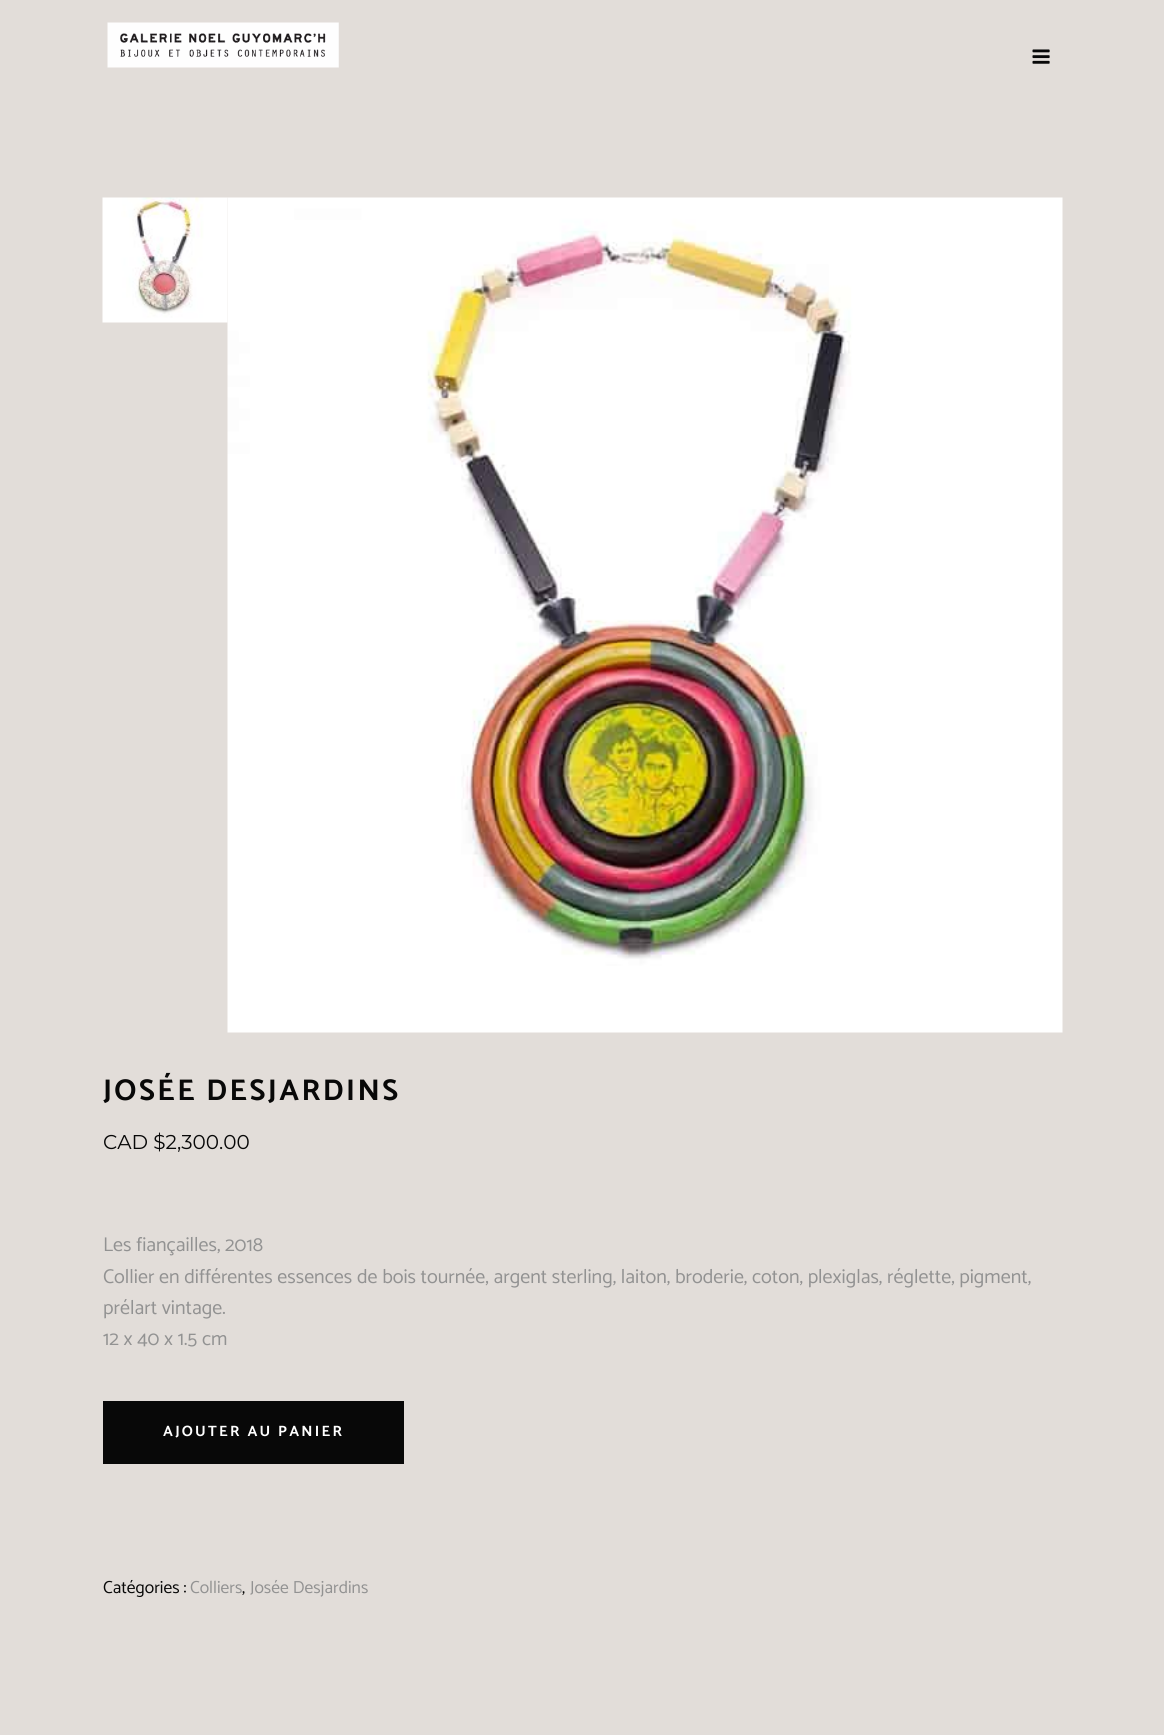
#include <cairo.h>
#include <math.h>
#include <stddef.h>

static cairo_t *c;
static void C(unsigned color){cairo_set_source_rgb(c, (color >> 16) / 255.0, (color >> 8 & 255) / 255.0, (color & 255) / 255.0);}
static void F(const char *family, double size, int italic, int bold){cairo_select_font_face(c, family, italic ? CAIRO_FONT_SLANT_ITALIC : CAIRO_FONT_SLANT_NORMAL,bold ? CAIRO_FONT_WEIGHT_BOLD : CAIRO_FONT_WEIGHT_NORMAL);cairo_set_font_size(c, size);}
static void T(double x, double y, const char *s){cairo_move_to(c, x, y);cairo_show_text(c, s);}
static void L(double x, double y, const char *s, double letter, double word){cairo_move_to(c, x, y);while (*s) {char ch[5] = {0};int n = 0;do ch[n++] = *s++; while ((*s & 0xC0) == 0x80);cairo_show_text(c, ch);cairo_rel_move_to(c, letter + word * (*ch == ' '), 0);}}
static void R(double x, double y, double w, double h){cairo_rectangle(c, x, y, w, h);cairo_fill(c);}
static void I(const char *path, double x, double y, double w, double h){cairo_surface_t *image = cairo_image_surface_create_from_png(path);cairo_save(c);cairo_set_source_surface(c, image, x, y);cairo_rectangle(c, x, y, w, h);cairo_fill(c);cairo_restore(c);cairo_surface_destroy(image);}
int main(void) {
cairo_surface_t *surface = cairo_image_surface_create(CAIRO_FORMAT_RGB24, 1164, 1735);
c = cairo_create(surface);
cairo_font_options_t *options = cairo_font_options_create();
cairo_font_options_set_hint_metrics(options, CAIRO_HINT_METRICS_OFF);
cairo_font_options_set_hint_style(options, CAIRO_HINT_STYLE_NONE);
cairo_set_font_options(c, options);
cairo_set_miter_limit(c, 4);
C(0xe2ddd9);
cairo_paint(c);
I("1.png",107,22,232,46);
I("2.png",1032,49,18,15);
I("4.png",227,197,836,836);
I("3.png",102,197,126,126);
F("Catamaran",30,0,1);
C(0x080808);
L(103,1100,"JOSÉE DESJARDINS",2.5,0);
F("Montserrat",20,0,0);
T(103,1149,"CAD $2,300.00");
F("Catamaran",20,0,0);
C(0x929292);
T(103,1251,"Les fiançailles, 2018");
T(103,1283,"Collier en différentes essences de bois tournée, argent sterling, laiton, broderie, coton, plexiglas, réglette, pigment,");
T(103,1314,"prélart vintage.");
T(103,1345,"12 x 40 x 1.5 cm");
C(0x080808);
R(103,1401,301,63);
F("Catamaran",15,0,1);
C(0xffffff);
L(163,1436,"AJOUTER AU PANIER",2.25,0);
F("Catamaran",17.5,0,0);
C(0x080808);
T(103,1593,"Catégories :");
C(0x929292);
T(190,1593,"Colliers");
C(0x080808);
T(242,1593,",");
C(0x929292);
T(250,1593,"Josée Desjardins");
cairo_surface_write_to_png(surface, "o.png");
cairo_font_options_destroy(options);
cairo_destroy(c);
cairo_surface_destroy(surface);
return 0;
}
